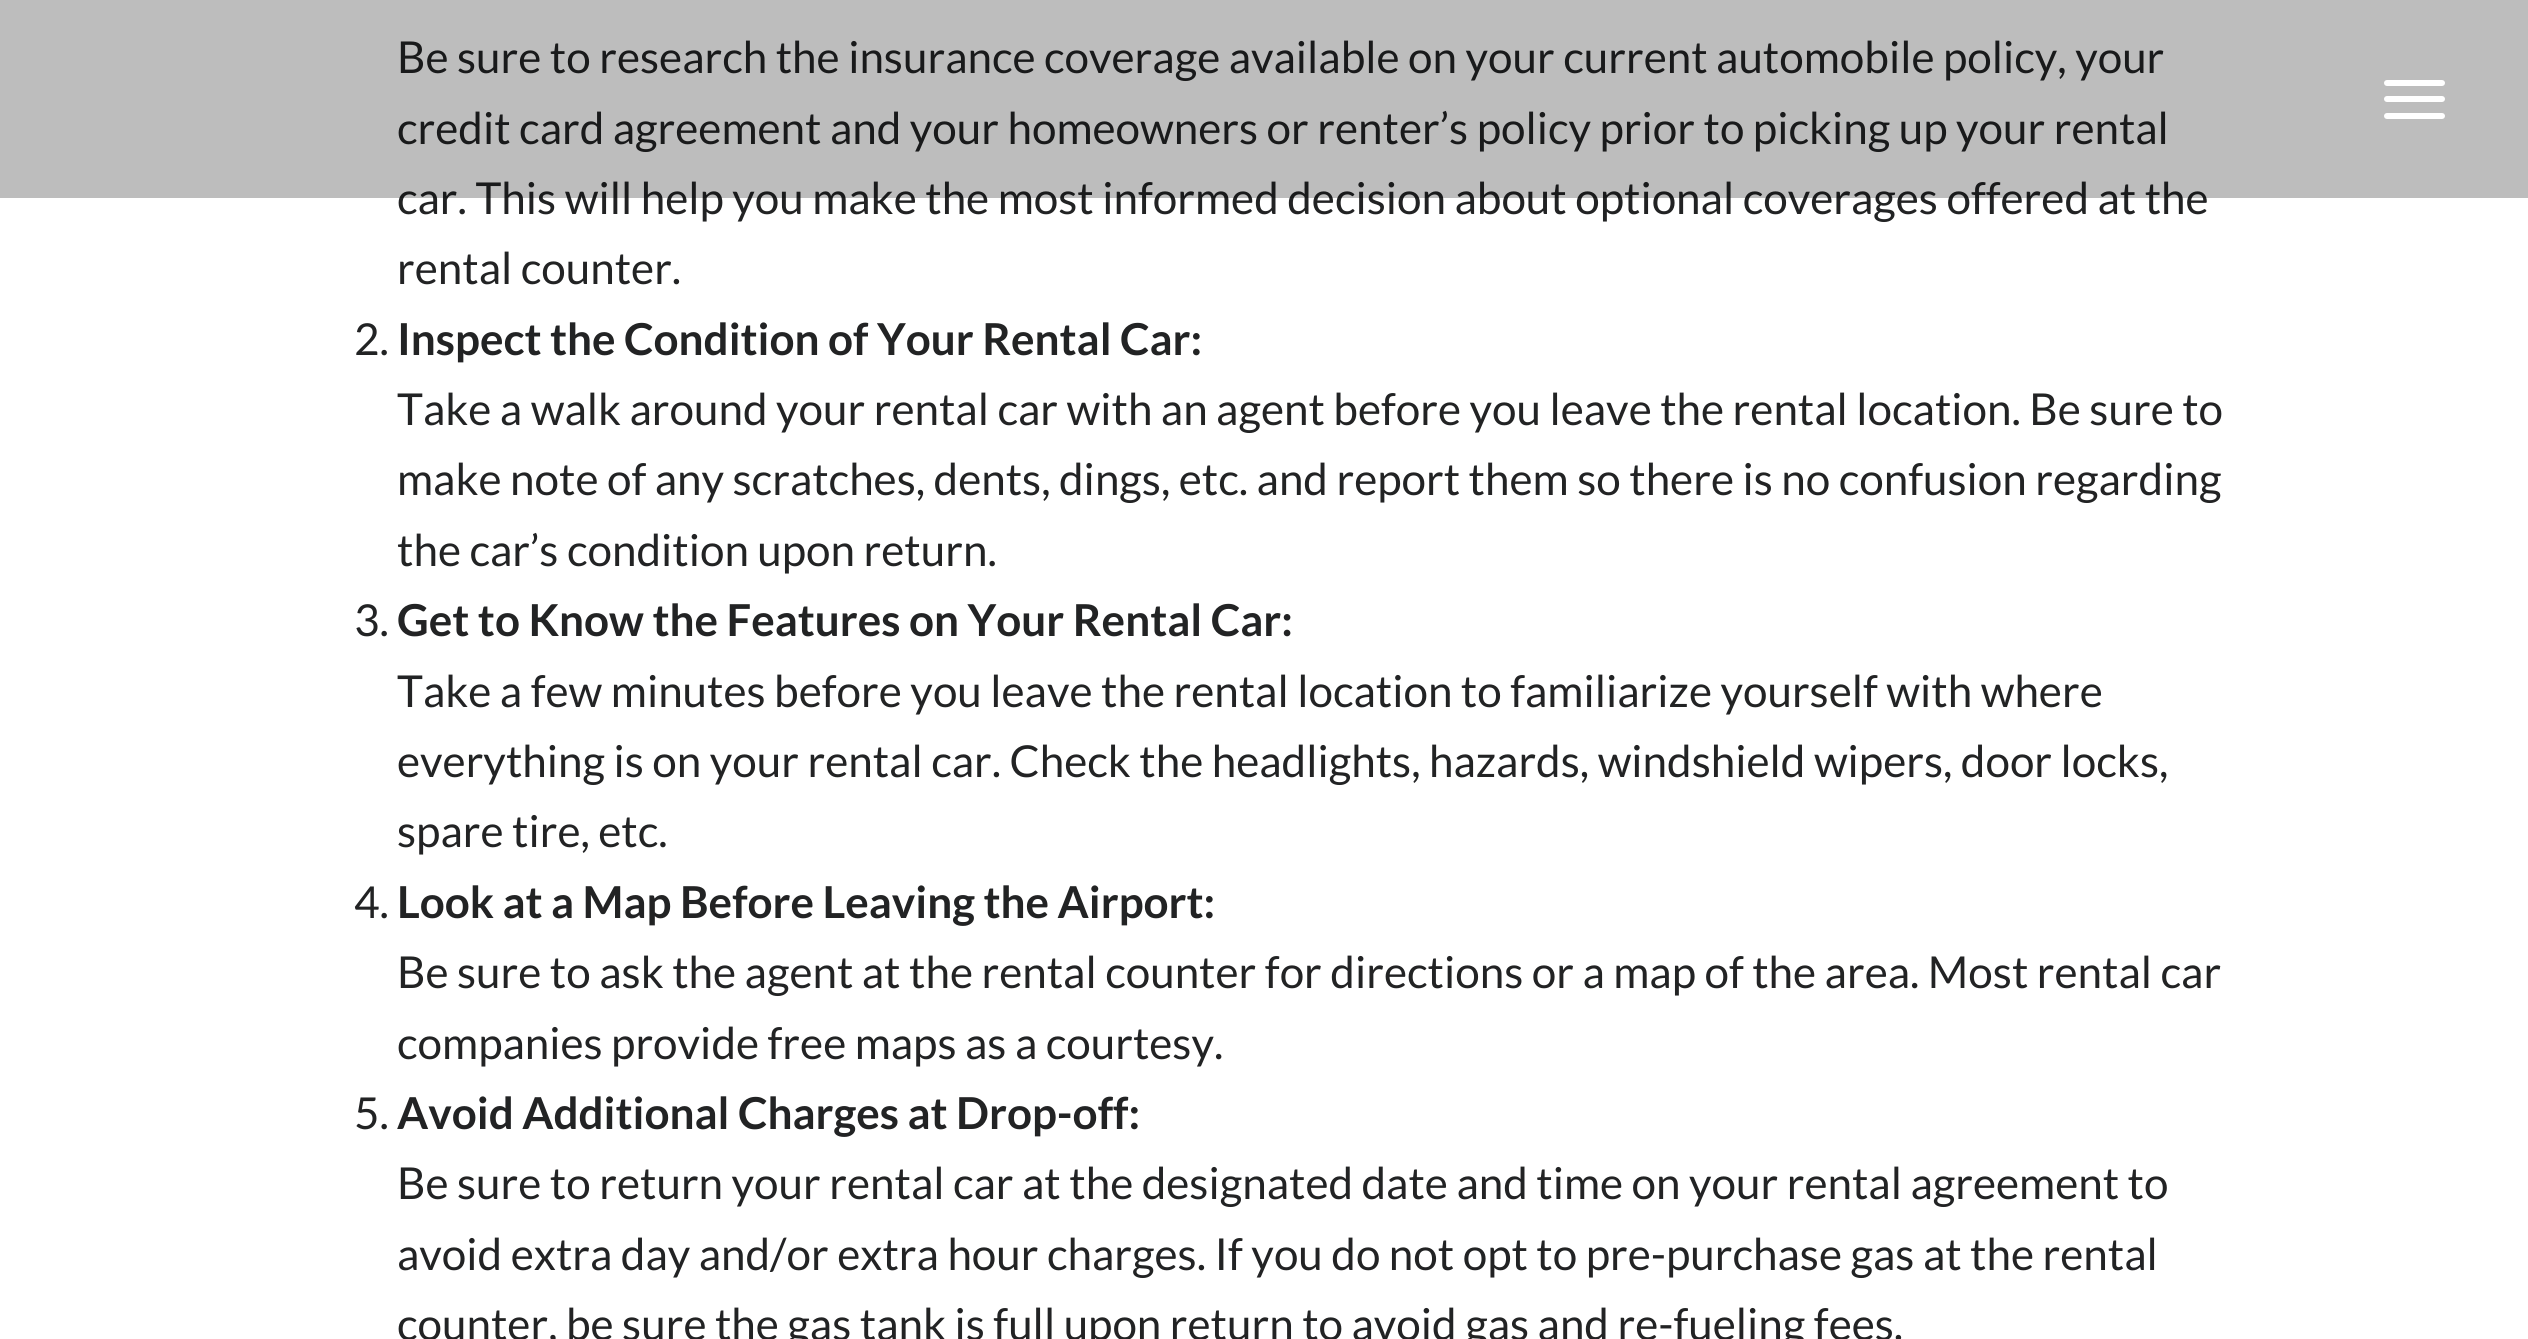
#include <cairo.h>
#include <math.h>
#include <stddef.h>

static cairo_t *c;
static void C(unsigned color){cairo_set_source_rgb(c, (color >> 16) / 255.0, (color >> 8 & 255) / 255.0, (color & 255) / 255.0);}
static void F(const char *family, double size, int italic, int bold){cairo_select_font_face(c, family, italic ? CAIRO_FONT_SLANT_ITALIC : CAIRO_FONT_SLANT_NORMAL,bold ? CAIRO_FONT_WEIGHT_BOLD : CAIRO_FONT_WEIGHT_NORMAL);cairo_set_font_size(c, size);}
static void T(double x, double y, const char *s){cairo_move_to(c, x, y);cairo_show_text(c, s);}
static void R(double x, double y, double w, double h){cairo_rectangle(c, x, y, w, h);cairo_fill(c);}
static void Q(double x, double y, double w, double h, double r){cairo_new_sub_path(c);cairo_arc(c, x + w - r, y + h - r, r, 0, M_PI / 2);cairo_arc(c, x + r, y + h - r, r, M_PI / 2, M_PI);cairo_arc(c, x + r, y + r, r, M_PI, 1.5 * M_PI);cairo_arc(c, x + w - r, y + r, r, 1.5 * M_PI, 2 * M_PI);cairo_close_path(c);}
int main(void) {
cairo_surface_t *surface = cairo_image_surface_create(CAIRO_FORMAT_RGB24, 2528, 1339);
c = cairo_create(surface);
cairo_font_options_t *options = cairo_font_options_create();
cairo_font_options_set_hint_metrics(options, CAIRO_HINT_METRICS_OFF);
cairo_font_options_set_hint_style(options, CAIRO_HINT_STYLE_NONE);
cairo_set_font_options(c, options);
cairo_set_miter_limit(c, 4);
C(0xffffff);
cairo_paint(c);
F("Lato",44,0,0);
C(0x222324);
T(397,73,"Be sure to research the insurance coverage available on your current automobile policy, your");
T(397,144,"credit card agreement and your homeowners or renter’s policy prior to picking up your rental");
T(397,214,"car. This will help you make the most informed decision about optional coverages offered at the");
cairo_set_source_rgba(c,0,0,0,0.26);
R(0,0,2528,198);
C(0xffffff);
Q(2384,80,61,6,3);
cairo_fill(c);
Q(2384,96,61,6,3);
cairo_fill(c);
Q(2384,113,61,6,3);
cairo_fill(c);
C(0x222324);
T(397,284,"rental counter.");
T(354,355,"2.");
F("Lato",44,0,1);
T(397,355,"Inspect the Condition of Your Rental Car:");
F("Lato",44,0,0);
T(397,425,"Take a walk around your rental car with an agent before you leave the rental location. Be sure to");
T(397,495,"make note of any scratches, dents, dings, etc. and report them so there is no confusion regarding");
T(397,566,"the car’s condition upon return.");
T(354,636,"3.");
F("Lato",44,0,1);
T(397,636,"Get to Know the Features on Your Rental Car:");
F("Lato",44,0,0);
T(397,707,"Take a few minutes before you leave the rental location to familiarize yourself with where");
T(397,777,"everything is on your rental car. Check the headlights, hazards, windshield wipers, door locks,");
T(397,847,"spare tire, etc.");
T(354,918,"4.");
F("Lato",44,0,1);
T(397,918,"Look at a Map Before Leaving the Airport:");
F("Lato",44,0,0);
T(397,988,"Be sure to ask the agent at the rental counter for directions or a map of the area. Most rental car");
T(397,1059,"companies provide free maps as a courtesy.");
T(354,1129,"5.");
F("Lato",44,0,1);
T(397,1129,"Avoid Additional Charges at Drop-off:");
F("Lato",44,0,0);
T(397,1199,"Be sure to return your rental car at the designated date and time on your rental agreement to");
T(397,1270,"avoid extra day and/or extra hour charges. If you do not opt to pre-purchase gas at the rental");
T(397,1340,"counter, be sure the gas tank is full upon return to avoid gas and re-fueling fees.");
cairo_surface_write_to_png(surface, "o.png");
cairo_font_options_destroy(options);
cairo_destroy(c);
cairo_surface_destroy(surface);
return 0;
}
